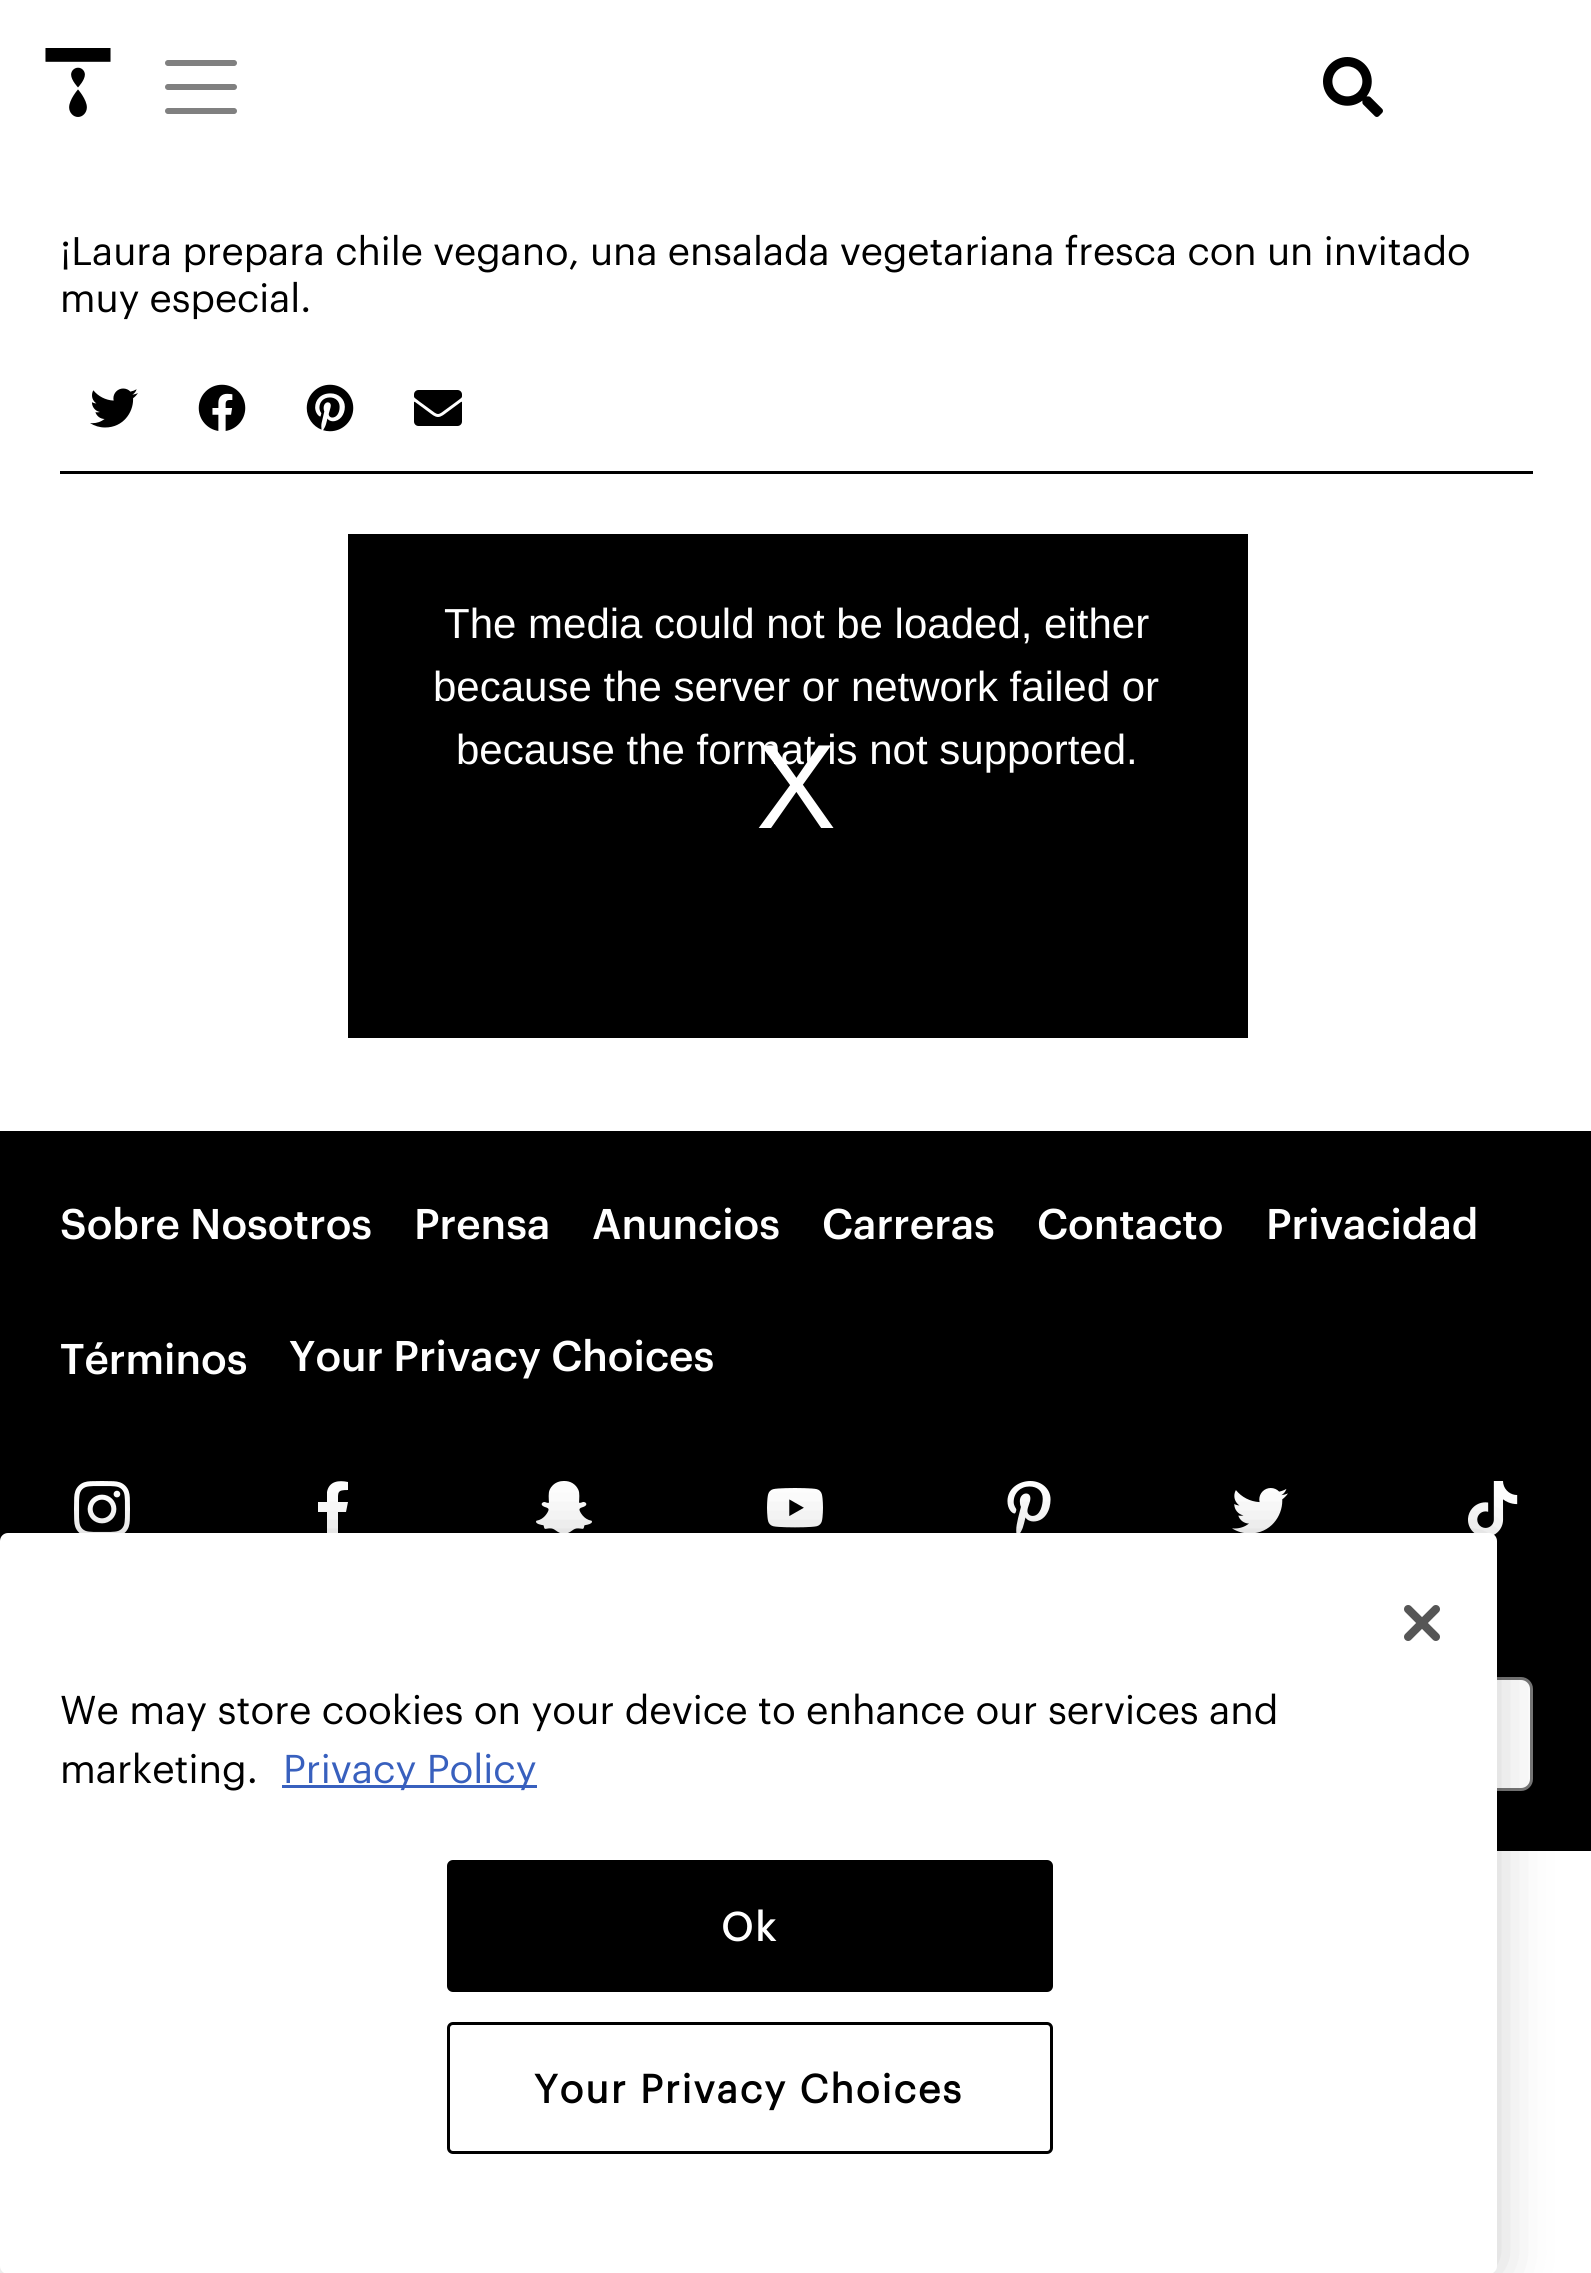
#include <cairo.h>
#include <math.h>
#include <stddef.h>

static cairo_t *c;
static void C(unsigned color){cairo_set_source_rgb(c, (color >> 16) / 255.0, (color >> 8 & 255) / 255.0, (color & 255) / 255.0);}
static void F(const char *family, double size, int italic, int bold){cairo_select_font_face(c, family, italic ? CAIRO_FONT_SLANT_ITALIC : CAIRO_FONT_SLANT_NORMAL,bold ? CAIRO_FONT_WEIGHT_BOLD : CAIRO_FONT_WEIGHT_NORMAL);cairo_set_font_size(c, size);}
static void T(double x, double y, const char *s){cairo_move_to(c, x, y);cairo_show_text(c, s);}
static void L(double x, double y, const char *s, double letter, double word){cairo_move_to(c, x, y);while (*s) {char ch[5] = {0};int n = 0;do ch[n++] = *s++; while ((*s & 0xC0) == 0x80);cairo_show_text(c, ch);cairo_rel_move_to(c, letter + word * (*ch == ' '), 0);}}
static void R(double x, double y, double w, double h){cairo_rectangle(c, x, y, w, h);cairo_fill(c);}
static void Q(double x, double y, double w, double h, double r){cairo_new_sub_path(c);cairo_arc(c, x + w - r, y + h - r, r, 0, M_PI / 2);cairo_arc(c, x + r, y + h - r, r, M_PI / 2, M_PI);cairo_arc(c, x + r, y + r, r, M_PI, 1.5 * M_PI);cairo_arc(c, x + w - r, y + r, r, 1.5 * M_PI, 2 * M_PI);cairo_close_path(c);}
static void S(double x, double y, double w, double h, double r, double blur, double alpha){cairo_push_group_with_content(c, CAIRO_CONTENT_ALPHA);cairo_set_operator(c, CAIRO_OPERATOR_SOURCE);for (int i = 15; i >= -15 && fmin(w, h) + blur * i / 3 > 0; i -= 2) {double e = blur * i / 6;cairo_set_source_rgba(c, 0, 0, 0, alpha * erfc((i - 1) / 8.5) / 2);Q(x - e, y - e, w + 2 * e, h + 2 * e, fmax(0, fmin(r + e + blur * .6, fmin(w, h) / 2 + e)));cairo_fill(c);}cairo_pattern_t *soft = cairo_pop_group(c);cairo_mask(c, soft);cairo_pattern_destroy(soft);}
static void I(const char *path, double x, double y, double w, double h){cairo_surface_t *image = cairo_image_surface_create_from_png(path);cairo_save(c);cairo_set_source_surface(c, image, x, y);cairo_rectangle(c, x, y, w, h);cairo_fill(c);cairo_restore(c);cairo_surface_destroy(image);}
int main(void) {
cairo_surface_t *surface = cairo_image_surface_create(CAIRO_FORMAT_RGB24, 1591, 2273);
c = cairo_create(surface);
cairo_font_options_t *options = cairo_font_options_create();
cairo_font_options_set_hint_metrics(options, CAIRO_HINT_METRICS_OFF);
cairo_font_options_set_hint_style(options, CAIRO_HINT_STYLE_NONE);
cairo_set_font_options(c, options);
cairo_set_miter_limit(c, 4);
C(0xffffff);
cairo_paint(c);
I("1.png",45,48,66,69);
cairo_new_path(c);
cairo_move_to(c,168,63);
cairo_line_to(c,234,63);
cairo_move_to(c,168,87);
cairo_line_to(c,234,87);
cairo_move_to(c,168,111);
cairo_line_to(c,234,111);
C(0x808080);
cairo_set_line_width(c,6);
cairo_set_line_cap(c,CAIRO_LINE_CAP_ROUND);
cairo_stroke(c);
I("2.png",1323,57,60,60);
F("Graphik",39,0,0);
C(0x000000);
T(60,265,"¡Laura prepara chile vegano, una ensalada vegetariana fresca con un invitado");
T(60,312,"muy especial.");
R(60,471,1473,3);
I("3.png",90,388,48,40);
I("4.png",198,384,48,47);
I("5.png",306,384,48,48);
I("6.png",414,390,48,36);
R(348,534,900,504);
F("Liberation Sans",42,0,0);
C(0xffffff);
T(444,638,"The media could not be loaded, either");
T(433,701,"because the server or network failed or");
F("Liberation Sans",120,0,0);
T(756,828,"X");
F("Liberation Sans",42,0,0);
T(456,764,"because the format is not supported.");
C(0x000000);
R(0,1131,1591,720);
F("Graphik Medium",42,0,0);
C(0xffffff);
T(60,1239,"Sobre Nosotros");
T(414,1239,"Prensa");
T(592,1239,"Anuncios");
T(822,1239,"Carreras");
T(1037,1239,"Contacto");
T(1266,1239,"Privacidad");
T(60,1374,"Términos");
T(289,1371,"Your Privacy Choices");
I("7.png",74,1481,56,52);
cairo_new_path(c);
cairo_move_to(c,346,1512);
cairo_line_to(c,348,1502);
cairo_line_to(c,338,1502);
cairo_curve_to(c,338,1492,337,1490,348,1490);
cairo_line_to(c,348,1482);
cairo_curve_to(c,339,1480,329,1481,327,1492);
cairo_line_to(c,327,1502);
cairo_line_to(c,318,1502);
cairo_line_to(c,318,1512);
cairo_line_to(c,327,1512);
cairo_line_to(c,327,1537);
cairo_line_to(c,338,1537);
cairo_line_to(c,338,1512);
cairo_close_path(c);
cairo_fill(c);
I("8.png",536,1481,56,52);
I("9.png",767,1488,56,40);
I("10.png",1007,1481,44,52);
I("11.png",1232,1488,56,45);
I("12.png",1468,1481,50,54);
Q(61.5,1678.5,1470,111,10.5);
cairo_fill_preserve(c);
C(0x767676);
cairo_set_line_width(c,3);
cairo_set_line_cap(c,CAIRO_LINE_CAP_BUTT);
cairo_stroke(c);
C(0x000000);
S(0,1533,1497,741,8,27,.2);
C(0xffffff);
Q(0,1533,1497,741,8);
cairo_fill(c);
I("13.png",1404,1605,36,36);
F("Graphik",39.35,0,0);
C(0x000000);
T(60,1724,"We may store cookies on your device to enhance our services and");
T(60,1783,"marketing.");
C(0x3860be);
R(282,1785,255,3);
T(283,1783,"Privacy Policy");
C(0x000000);
Q(448.5,1861.5,603,129,4.5);
cairo_fill_preserve(c);
cairo_stroke(c);
F("Graphik",39.35,0,1);
C(0xffffff);
L(721,1941,"Ok",2,0);
Q(448.5,2023.5,603,129,4.5);
C(0x000000);
cairo_stroke(c);
L(534,2103,"Your Privacy Choices",2,0);
cairo_surface_write_to_png(surface, "o.png");
cairo_font_options_destroy(options);
cairo_destroy(c);
cairo_surface_destroy(surface);
return 0;
}
